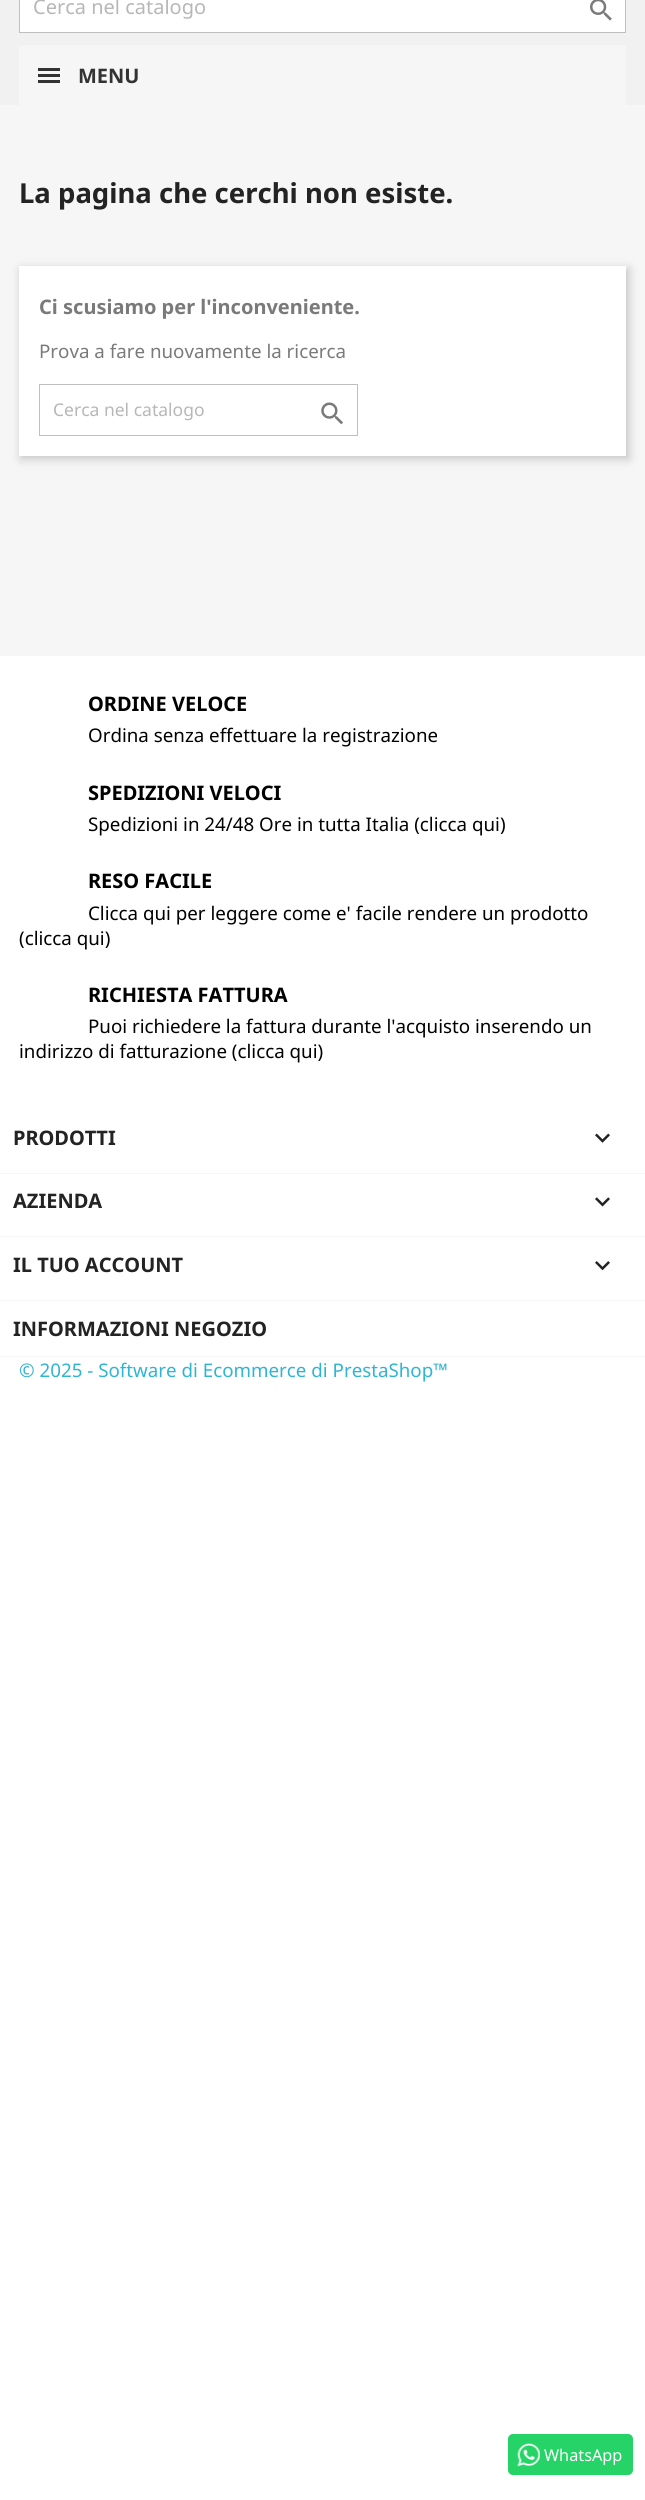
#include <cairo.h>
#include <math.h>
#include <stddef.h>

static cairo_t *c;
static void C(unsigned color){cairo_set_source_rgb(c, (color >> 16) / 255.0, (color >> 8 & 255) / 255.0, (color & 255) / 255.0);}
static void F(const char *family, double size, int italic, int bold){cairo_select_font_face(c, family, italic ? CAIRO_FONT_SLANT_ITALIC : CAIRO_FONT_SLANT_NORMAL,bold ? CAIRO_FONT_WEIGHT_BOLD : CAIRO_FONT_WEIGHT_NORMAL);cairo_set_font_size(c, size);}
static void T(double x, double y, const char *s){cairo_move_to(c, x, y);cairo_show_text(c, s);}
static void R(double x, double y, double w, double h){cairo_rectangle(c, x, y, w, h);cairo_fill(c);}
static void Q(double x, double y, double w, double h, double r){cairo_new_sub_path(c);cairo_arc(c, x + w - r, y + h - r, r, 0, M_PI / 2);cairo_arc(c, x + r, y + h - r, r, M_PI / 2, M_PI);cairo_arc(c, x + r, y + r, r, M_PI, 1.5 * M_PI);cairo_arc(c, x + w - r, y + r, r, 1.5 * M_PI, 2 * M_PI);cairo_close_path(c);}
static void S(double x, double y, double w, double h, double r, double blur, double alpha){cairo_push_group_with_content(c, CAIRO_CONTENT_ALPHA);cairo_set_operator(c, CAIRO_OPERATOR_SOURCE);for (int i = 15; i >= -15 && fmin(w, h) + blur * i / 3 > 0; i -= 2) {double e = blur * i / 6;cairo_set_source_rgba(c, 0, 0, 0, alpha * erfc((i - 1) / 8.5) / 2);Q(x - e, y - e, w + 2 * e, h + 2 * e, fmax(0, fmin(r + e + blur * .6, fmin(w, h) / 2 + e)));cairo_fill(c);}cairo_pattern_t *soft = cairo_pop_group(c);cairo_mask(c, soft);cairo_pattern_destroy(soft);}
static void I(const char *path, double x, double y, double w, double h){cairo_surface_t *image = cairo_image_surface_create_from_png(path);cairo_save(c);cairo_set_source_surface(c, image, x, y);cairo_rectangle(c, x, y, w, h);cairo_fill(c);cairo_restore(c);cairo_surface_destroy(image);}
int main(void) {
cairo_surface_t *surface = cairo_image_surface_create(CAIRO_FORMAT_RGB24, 645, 2500);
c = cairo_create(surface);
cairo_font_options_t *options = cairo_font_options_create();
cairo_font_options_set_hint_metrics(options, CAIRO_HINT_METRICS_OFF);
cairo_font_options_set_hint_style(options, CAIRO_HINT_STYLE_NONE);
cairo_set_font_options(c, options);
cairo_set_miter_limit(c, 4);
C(0xffffff);
cairo_paint(c);
C(0xf1f1f1);
R(0,0,645,105);
C(0xffffff);
cairo_rectangle(c,19.5,-.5,606,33);
cairo_fill_preserve(c);
C(0xbfbfbf);
cairo_set_line_width(c,1);
cairo_stroke(c);
F("Noto Sans",20,0,0);
C(0xb7b7b7);
T(33,14,"Cerca nel catalogo");
I("1.png",590,0,22,21);
C(0xf6f6f6);
R(19,45,607,60);
C(0x333333);
R(38,68,22,3);
R(38,74,22,3);
R(38,80,22,3);
F("Noto Sans",20,0,1);
T(78,83,"MENU");
C(0xf6f6f6);
R(0,105,645,551);
F("Noto Sans",27.5,0,1);
C(0x232323);
T(19,203,"La pagina che cerchi non esiste.");
C(0x000000);
S(21,269,608,190,0,5,.2);
C(0xffffff);
R(19,266,607,190);
F("Noto Sans",20,0,1);
C(0x7a7a7a);
T(39,314,"Ci scusiamo per l'inconveniente.");
F("Noto Sans",18.75,0,0);
T(39,358,"Prova a fare nuovamente la ricerca");
cairo_rectangle(c,39.5,384.5,318,51);
C(0xbfbfbf);
cairo_stroke(c);
F("Noto Sans",17.5,0,0);
C(0xb7b7b7);
T(53,416,"Cerca nel catalogo");
I("2.png",321,402,22,23);
F("Noto Sans",20,0,1);
C(0x000000);
T(88,711,"ORDINE VELOCE");
F("Noto Sans",18.75,0,0);
T(88,742,"Ordina senza effettuare la registrazione");
F("Noto Sans",20,0,1);
T(88,800,"SPEDIZIONI VELOCI");
F("Noto Sans",18.75,0,0);
T(88,831,"Spedizioni in 24/48 Ore in tutta Italia (clicca qui)");
F("Noto Sans",20,0,1);
T(88,888,"RESO FACILE");
F("Noto Sans",18.75,0,0);
T(88,920,"Clicca qui per leggere come e' facile rendere un prodotto");
T(19,945,"(clicca qui)");
F("Noto Sans",20,0,1);
T(88,1002,"RICHIESTA FATTURA");
F("Noto Sans",18.75,0,0);
T(88,1033,"Puoi richiedere la fattura durante l'acquisto inserendo un");
T(19,1058,"indirizzo di fatturazione (clicca qui)");
C(0xf6f6f6);
R(0,1173,645,1);
F("Noto Sans",20,0,1);
C(0x232323);
T(13,1145,"PRODOTTI");
I("3.png",595,1133,15,10);
C(0xf6f6f6);
R(0,1236,645,1);
C(0x232323);
T(13,1208,"AZIENDA");
I("4.png",595,1197,15,10);
C(0xf6f6f6);
R(0,1300,645,1);
C(0x232323);
T(13,1272,"IL TUO ACCOUNT");
I("5.png",595,1261,15,10);
C(0xf6f6f6);
R(0,1356,645,1);
C(0x232323);
T(13,1336,"INFORMAZIONI NEGOZIO");
F("Noto Sans",18.75,0,0);
C(0x2fb5d2);
T(19,1377,"© 2025 - Software di Ecommerce di PrestaShop™");
C(0x25d366);
Q(508,2434,125,41,5);
cairo_fill(c);
I("6.png",517,2443,23,24);
F("Noto Sans",16.25,0,0);
C(0xffffff);
T(544,2461,"WhatsApp");
cairo_surface_write_to_png(surface, "o.png");
cairo_font_options_destroy(options);
cairo_destroy(c);
cairo_surface_destroy(surface);
return 0;
}
